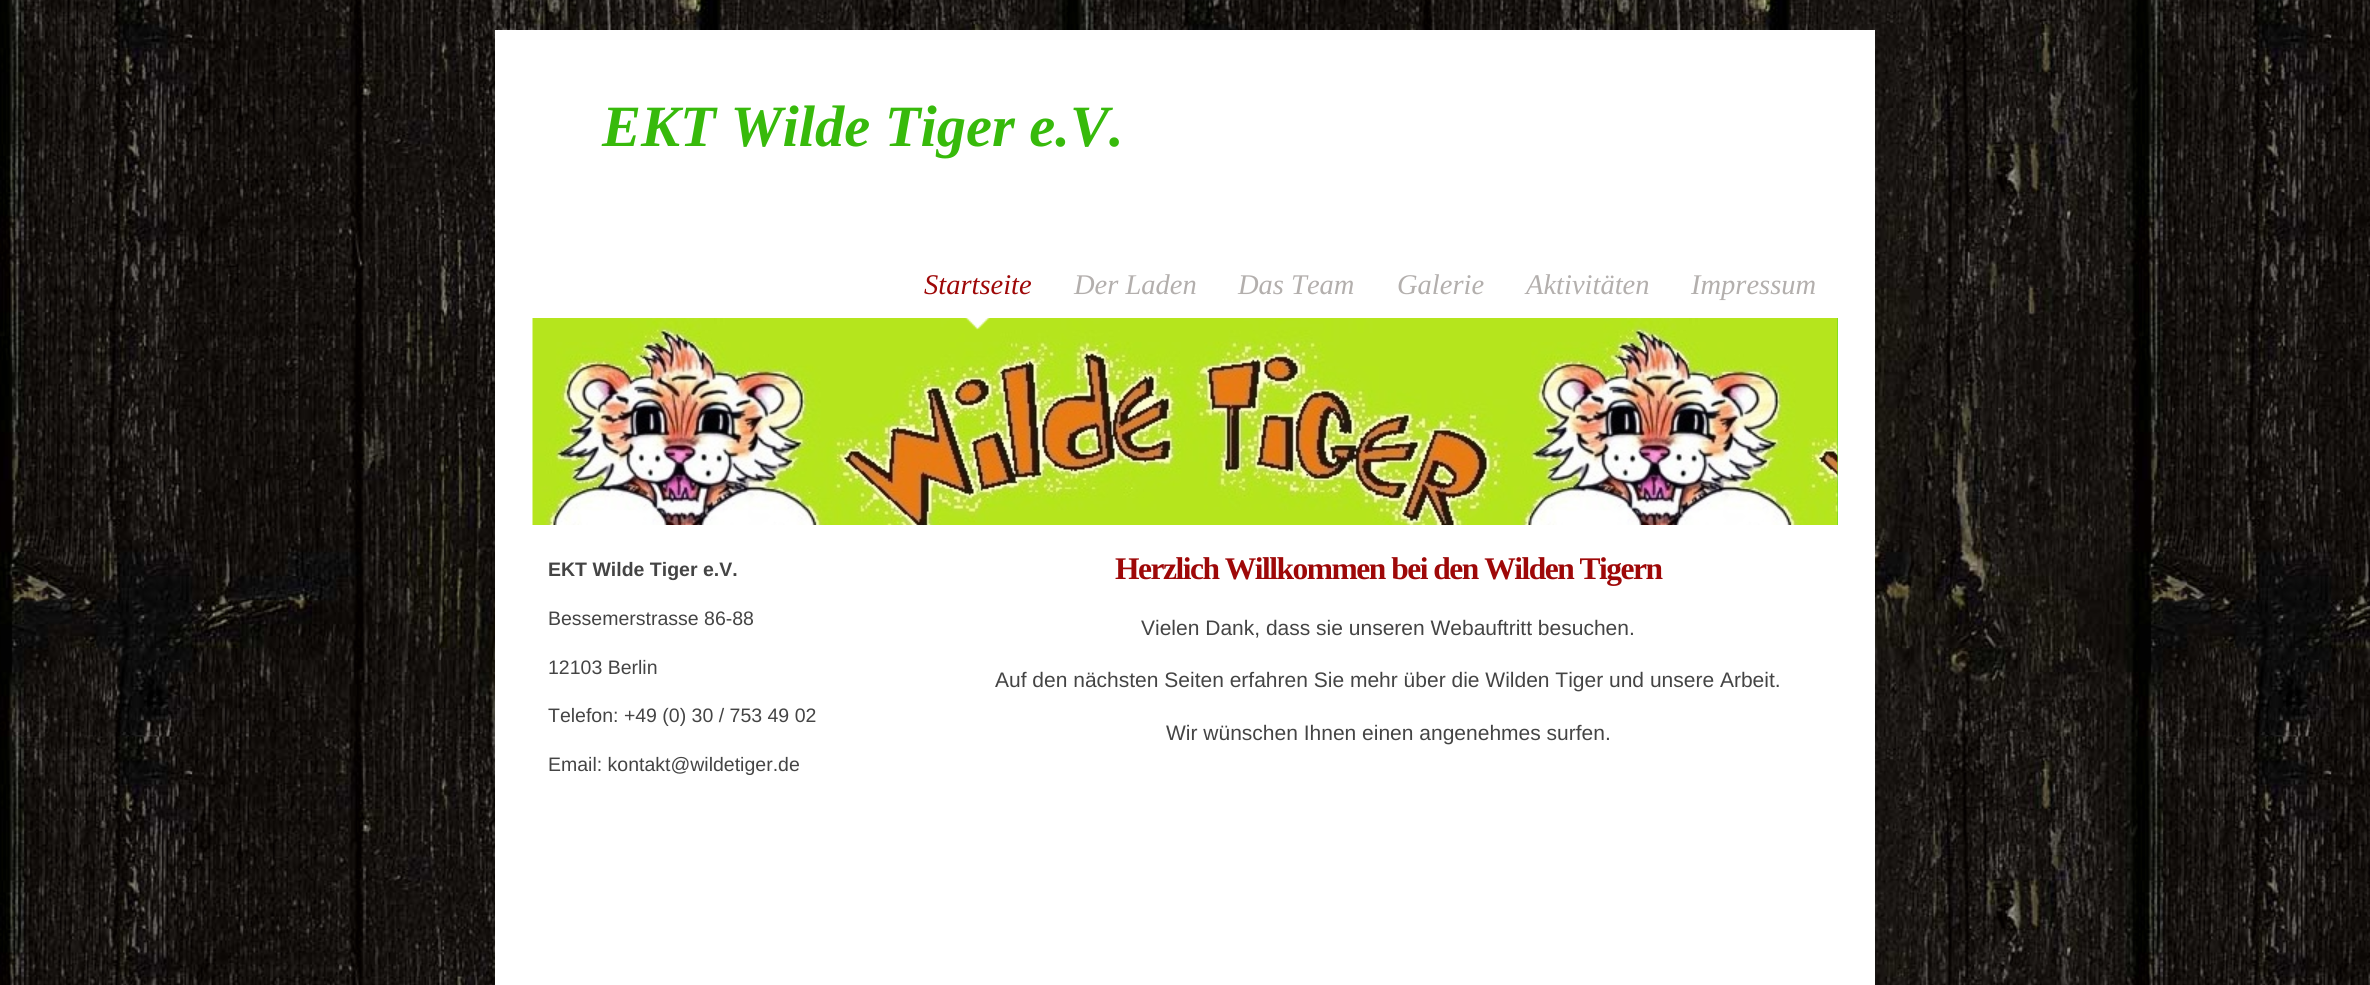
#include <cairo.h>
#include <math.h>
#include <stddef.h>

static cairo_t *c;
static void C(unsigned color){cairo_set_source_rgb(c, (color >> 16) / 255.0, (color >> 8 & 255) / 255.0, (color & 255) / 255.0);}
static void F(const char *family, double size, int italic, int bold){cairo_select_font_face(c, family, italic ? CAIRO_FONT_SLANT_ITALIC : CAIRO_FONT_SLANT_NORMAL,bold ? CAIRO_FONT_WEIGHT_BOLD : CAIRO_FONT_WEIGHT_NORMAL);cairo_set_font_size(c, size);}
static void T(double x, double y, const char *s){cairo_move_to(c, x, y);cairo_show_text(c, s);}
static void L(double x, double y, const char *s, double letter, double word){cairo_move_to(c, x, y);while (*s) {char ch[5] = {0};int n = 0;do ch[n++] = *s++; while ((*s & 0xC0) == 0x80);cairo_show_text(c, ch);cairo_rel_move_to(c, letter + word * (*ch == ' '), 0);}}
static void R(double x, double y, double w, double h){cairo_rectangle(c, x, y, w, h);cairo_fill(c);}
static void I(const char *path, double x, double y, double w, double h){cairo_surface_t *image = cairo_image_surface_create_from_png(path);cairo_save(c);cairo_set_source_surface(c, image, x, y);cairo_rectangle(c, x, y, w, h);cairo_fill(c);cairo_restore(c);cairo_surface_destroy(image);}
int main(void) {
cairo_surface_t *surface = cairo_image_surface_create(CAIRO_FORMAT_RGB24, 2370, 985);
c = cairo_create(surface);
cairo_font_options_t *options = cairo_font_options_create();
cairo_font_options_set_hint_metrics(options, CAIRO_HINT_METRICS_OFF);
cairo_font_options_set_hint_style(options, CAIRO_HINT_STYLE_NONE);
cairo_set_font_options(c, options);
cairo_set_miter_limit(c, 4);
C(0xffffff);
cairo_paint(c);
I("1.png",0,0,2370,985);
C(0xffffff);
R(495,30,1380,955);
C(0x55d615);
R(1837,318,1,207);
I("2.png",532,318,1306,207);
F("Liberation Serif",58.5,1,1);
C(0x37ba0b);
T(602,146,"EKT Wilde Tiger e.V.");
I("3.png",965,318,25,12);
F("Liberation Serif",28.5,1,0);
C(0x9e0808);
T(924,294,"Startseite");
C(0xb3afad);
T(1074,294,"Der Laden");
T(1238,294,"Das Team");
T(1397,294,"Galerie");
T(1526,294,"Aktivitäten");
T(1691,294,"Impressum");
F("Liberation Sans",19.5,0,1);
C(0x444444);
T(548,576,"EKT Wilde Tiger e.V.");
F("Liberation Sans",19.5,0,0);
T(548,625,"Bessemerstrasse 86-88");
T(548,674,"12103 Berlin");
T(548,722,"Telefon: +49 (0) 30 / 753 49 02");
T(548,771,"Email: kontakt@wildetiger.de");
F("Liberation Serif",31.5,0,1);
C(0x9e0808);
L(1115,579,"Herzlich Willkommen bei den Wilden Tigern",-1.5,0);
F("Liberation Sans",21,0,0);
C(0x444444);
T(1141,635,"Vielen Dank, dass sie unseren Webauftritt besuchen.");
T(995,687,"Auf den nächsten Seiten erfahren Sie mehr über die Wilden Tiger und unsere Arbeit.");
T(1166,740,"Wir wünschen Ihnen einen angenehmes surfen.");
cairo_surface_write_to_png(surface, "o.png");
cairo_font_options_destroy(options);
cairo_destroy(c);
cairo_surface_destroy(surface);
return 0;
}
